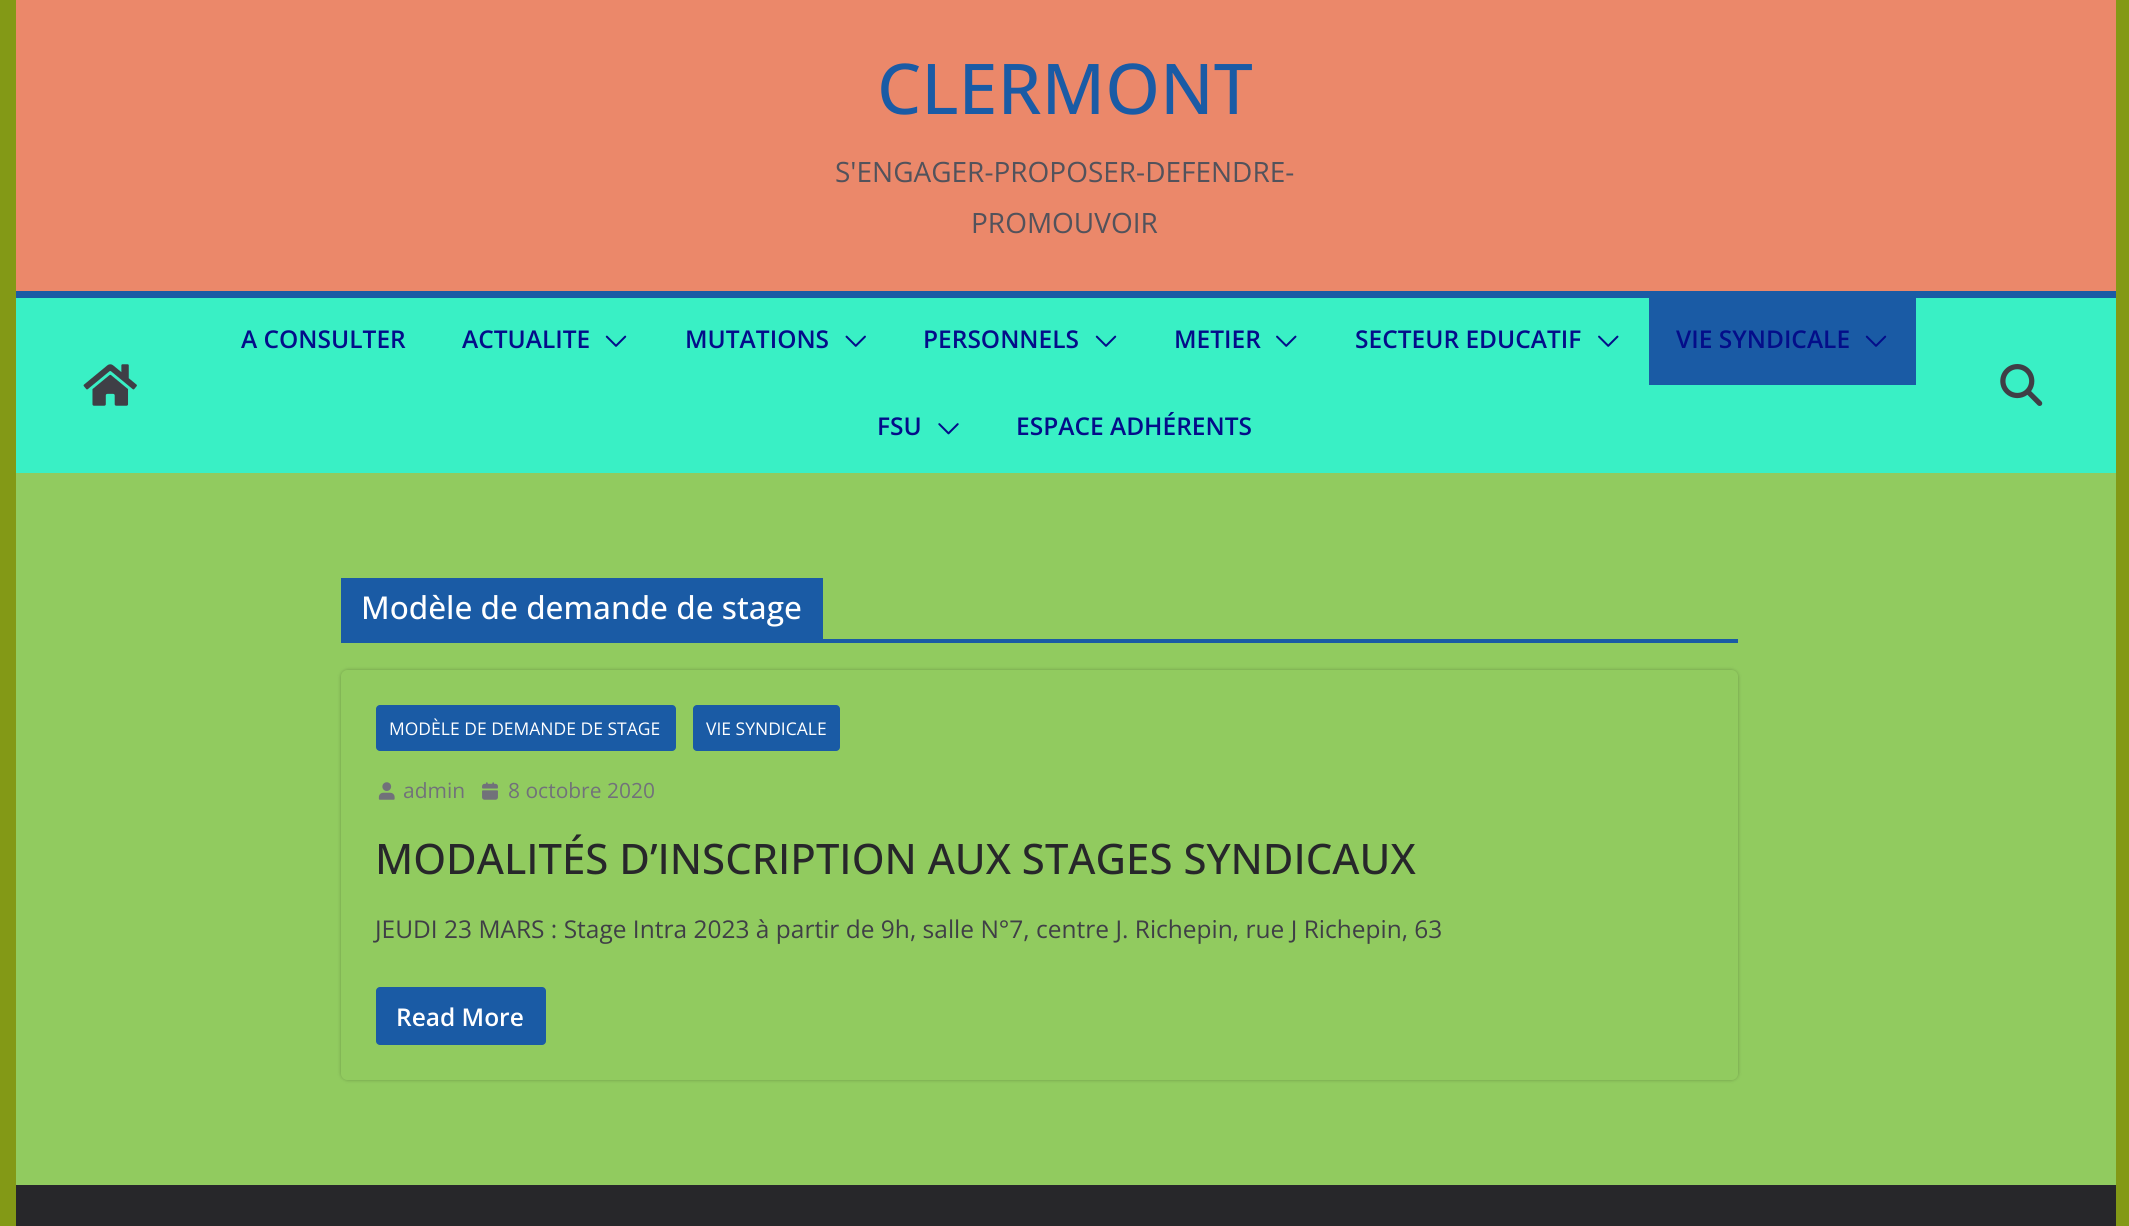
#include <cairo.h>
#include <math.h>
#include <stddef.h>

static cairo_t *c;
static void C(unsigned color){cairo_set_source_rgb(c, (color >> 16) / 255.0, (color >> 8 & 255) / 255.0, (color & 255) / 255.0);}
static void F(const char *family, double size, int italic, int bold){cairo_select_font_face(c, family, italic ? CAIRO_FONT_SLANT_ITALIC : CAIRO_FONT_SLANT_NORMAL,bold ? CAIRO_FONT_WEIGHT_BOLD : CAIRO_FONT_WEIGHT_NORMAL);cairo_set_font_size(c, size);}
static void T(double x, double y, const char *s){cairo_move_to(c, x, y);cairo_show_text(c, s);}
static void R(double x, double y, double w, double h){cairo_rectangle(c, x, y, w, h);cairo_fill(c);}
static void Q(double x, double y, double w, double h, double r){cairo_new_sub_path(c);cairo_arc(c, x + w - r, y + h - r, r, 0, M_PI / 2);cairo_arc(c, x + r, y + h - r, r, M_PI / 2, M_PI);cairo_arc(c, x + r, y + r, r, M_PI, 1.5 * M_PI);cairo_arc(c, x + w - r, y + r, r, 1.5 * M_PI, 2 * M_PI);cairo_close_path(c);}
static void S(double x, double y, double w, double h, double r, double blur, double alpha){cairo_push_group_with_content(c, CAIRO_CONTENT_ALPHA);cairo_set_operator(c, CAIRO_OPERATOR_SOURCE);for (int i = 15; i >= -15 && fmin(w, h) + blur * i / 3 > 0; i -= 2) {double e = blur * i / 6;cairo_set_source_rgba(c, 0, 0, 0, alpha * erfc((i - 1) / 8.5) / 2);Q(x - e, y - e, w + 2 * e, h + 2 * e, fmax(0, fmin(r + e + blur * .6, fmin(w, h) / 2 + e)));cairo_fill(c);}cairo_pattern_t *soft = cairo_pop_group(c);cairo_mask(c, soft);cairo_pattern_destroy(soft);}
static void I(const char *path, double x, double y, double w, double h){cairo_surface_t *image = cairo_image_surface_create_from_png(path);cairo_save(c);cairo_set_source_surface(c, image, x, y);cairo_rectangle(c, x, y, w, h);cairo_fill(c);cairo_restore(c);cairo_surface_destroy(image);}
int main(void) {
cairo_surface_t *surface = cairo_image_surface_create(CAIRO_FORMAT_RGB24, 2129, 1226);
c = cairo_create(surface);
cairo_font_options_t *options = cairo_font_options_create();
cairo_font_options_set_hint_metrics(options, CAIRO_HINT_METRICS_OFF);
cairo_font_options_set_hint_style(options, CAIRO_HINT_STYLE_NONE);
cairo_set_font_options(c, options);
cairo_set_miter_limit(c, 4);
C(0x839916);
cairo_paint(c);
C(0xeb886a);
R(16,0,2100,291);
F("Open Sans Medium",70,0,0);
C(0x1a5ba5);
T(877,114,"CLERMONT");
F("Open Sans",28,0,0);
C(0x52525b);
T(835,182,"S'ENGAGER-PROPOSER-DEFENDRE-");
T(971,233,"PROMOUVOIR");
C(0x39f0c5);
R(16,298,2100,175);
C(0x1a5ba5);
R(16,291,2100,7);
I("1.png",83,364,54,42);
F("Open Sans SemiBold",24.5,0,0);
C(0x040d89);
T(241,348,"A CONSULTER");
T(462,348,"ACTUALITE");
I("2.png",605,335,22,12);
T(685,348,"MUTATIONS");
I("3.png",845,335,21,12);
T(923,348,"PERSONNELS");
I("2.png",1095,335,22,12);
T(1174,348,"METIER");
I("4.png",1276,335,21,12);
T(1355,348,"SECTEUR EDUCATIF");
I("4.png",1598,335,21,12);
C(0x1a5ba5);
R(1649,298,267,87);
C(0x040d89);
T(1676,348,"VIE SYNDICALE");
I("5.png",1865,335,22,12);
T(877,435,"FSU");
I("6.png",938,423,21,12);
T(1016,435,"ESPACE ADHÉRENTS");
I("7.png",2000,364,43,42);
C(0x91cb5f);
R(16,473,2100,712);
C(0x1a5ba5);
R(341,639,1397,4);
R(341,578,482,61);
F("Open Sans Medium",31.5,0,0);
C(0xffffff);
T(361,619,"Modèle de demande de stage");
cairo_save(c);
cairo_set_fill_rule(c,CAIRO_FILL_RULE_EVEN_ODD);
cairo_new_path(c);
cairo_move_to(c,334,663);
cairo_line_to(c,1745,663);
cairo_line_to(c,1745,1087);
cairo_line_to(c,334,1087);
cairo_close_path(c);
cairo_move_to(c,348,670);
cairo_line_to(c,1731,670);
cairo_curve_to(c,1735,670,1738,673,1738,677);
cairo_line_to(c,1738,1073);
cairo_curve_to(c,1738,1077,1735,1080,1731,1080);
cairo_line_to(c,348,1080);
cairo_curve_to(c,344,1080,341,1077,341,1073);
cairo_line_to(c,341,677);
cairo_curve_to(c,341,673,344,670,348,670);
cairo_close_path(c);
cairo_clip(c);
C(0x000000);
S(341,670,1397,410,7,2,.24);
cairo_restore(c);
C(0x1a5ba5);
Q(376,705,300,46,4);
cairo_fill(c);
F("Open Sans",17.5,0,0);
C(0xffffff);
T(389,735,"MODÈLE DE DEMANDE DE STAGE");
C(0x1a5ba5);
Q(693,705,147,46,4);
cairo_fill(c);
C(0xffffff);
T(706,735,"VIE SYNDICALE");
I("8.png",378,782,17,18);
F("Open Sans",21,0,0);
C(0x71717a);
T(403,798,"admin");
I("9.png",482,782,16,18);
T(508,798,"8 octobre 2020");
F("Open Sans Medium",42,0,0);
C(0x27272a);
T(375,874,"MODALITÉS D’INSCRIPTION AUX STAGES SYNDICAUX");
F("Open Sans",24.5,0,0);
C(0x3f3f46);
T(375,938,"JEUDI 23 MARS : Stage Intra 2023 à partir de 9h, salle N°7, centre J. Richepin, rue J Richepin, 63");
C(0x1a5ba5);
Q(376,987,170,58,4);
cairo_fill(c);
F("Open Sans SemiBold",24.5,0,0);
C(0xffffff);
T(396,1026,"Read More");
C(0x27272a);
R(16,1185,2100,41);
cairo_surface_write_to_png(surface, "o.png");
cairo_font_options_destroy(options);
cairo_destroy(c);
cairo_surface_destroy(surface);
return 0;
}
